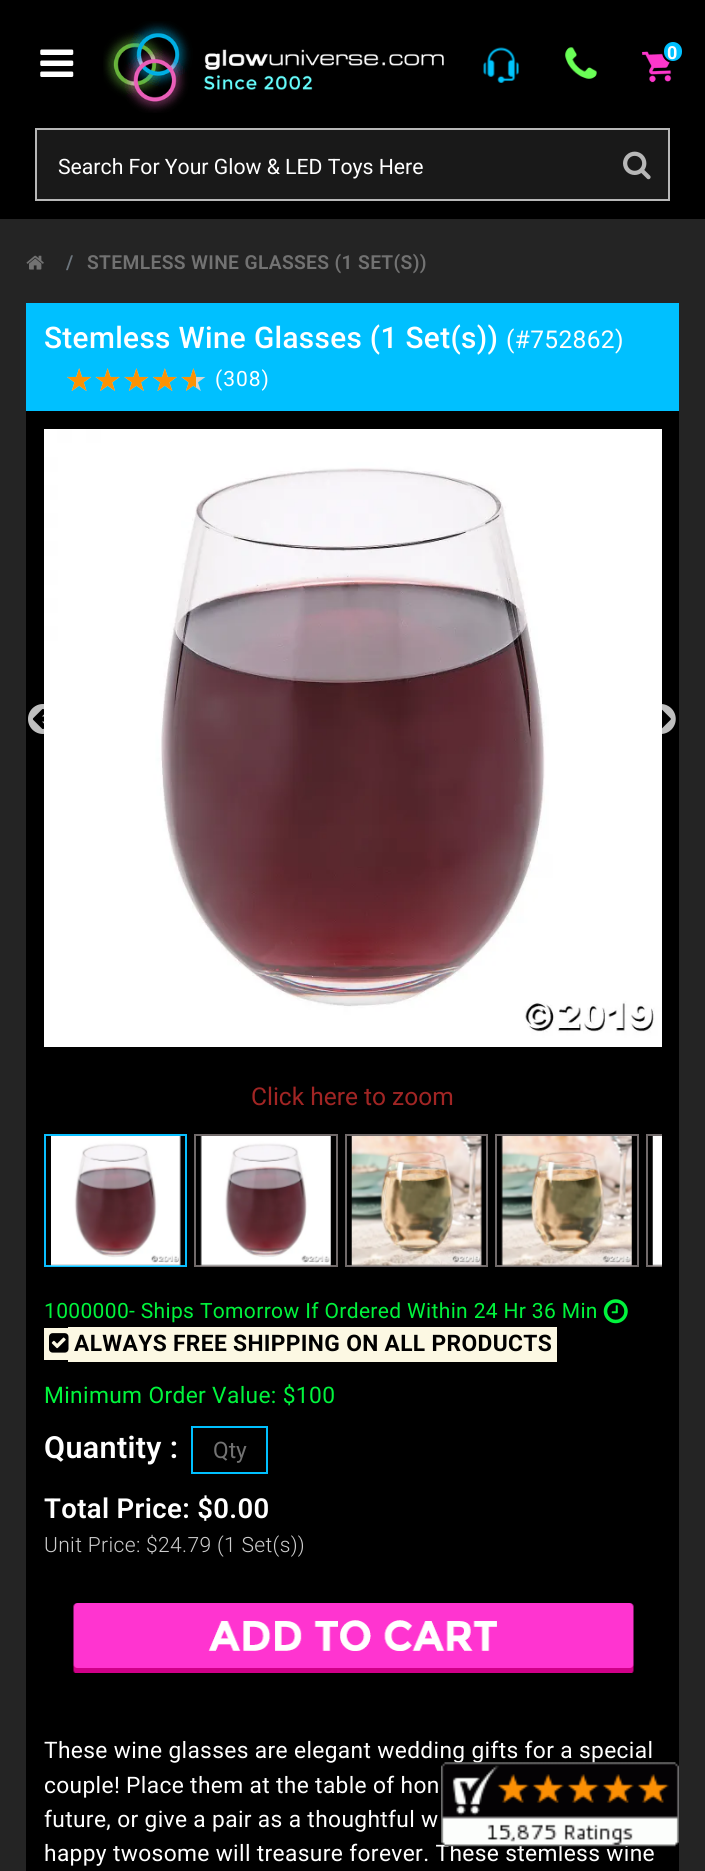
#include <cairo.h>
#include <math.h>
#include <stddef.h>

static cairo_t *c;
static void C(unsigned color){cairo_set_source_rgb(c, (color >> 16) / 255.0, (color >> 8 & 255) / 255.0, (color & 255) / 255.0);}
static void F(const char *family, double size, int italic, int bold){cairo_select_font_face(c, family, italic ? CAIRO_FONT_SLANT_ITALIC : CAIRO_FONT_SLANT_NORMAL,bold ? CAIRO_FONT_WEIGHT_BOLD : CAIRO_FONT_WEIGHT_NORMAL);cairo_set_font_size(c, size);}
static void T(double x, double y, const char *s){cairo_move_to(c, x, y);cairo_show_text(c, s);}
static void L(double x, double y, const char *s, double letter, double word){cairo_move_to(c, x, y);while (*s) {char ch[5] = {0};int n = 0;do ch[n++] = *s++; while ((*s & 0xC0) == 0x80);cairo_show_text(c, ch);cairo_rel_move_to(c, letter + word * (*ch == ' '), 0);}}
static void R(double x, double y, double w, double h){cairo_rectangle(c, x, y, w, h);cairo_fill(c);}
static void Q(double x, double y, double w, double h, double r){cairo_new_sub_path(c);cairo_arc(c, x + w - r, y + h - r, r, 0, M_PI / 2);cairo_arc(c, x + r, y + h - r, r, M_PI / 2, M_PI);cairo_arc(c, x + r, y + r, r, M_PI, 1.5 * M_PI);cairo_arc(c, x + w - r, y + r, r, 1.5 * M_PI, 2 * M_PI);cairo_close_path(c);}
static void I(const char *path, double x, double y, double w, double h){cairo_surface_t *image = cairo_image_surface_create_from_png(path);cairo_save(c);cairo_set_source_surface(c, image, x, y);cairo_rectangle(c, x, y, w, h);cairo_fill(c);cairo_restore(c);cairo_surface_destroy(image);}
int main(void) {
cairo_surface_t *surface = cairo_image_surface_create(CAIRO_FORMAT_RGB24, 705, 1871);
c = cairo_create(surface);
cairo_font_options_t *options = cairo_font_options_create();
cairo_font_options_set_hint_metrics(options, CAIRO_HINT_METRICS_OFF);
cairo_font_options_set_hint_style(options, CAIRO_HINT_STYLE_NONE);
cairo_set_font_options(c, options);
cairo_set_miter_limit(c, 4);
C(0x242424);
cairo_paint(c);
C(0x000000);
R(0,0,705,219);
I("1.png",40,49,34,28);
I("2.png",103,21,341,92);
I("3.png",483,47,36,36);
I("4.png",565,47,32,32);
I("5.png",642,51,30,32);
C(0x00c0ff);
Q(663,41,20,21,10);
cairo_fill_preserve(c);
C(0x000000);
cairo_stroke(c);
F("Roboto",18,0,1);
C(0xffffff);
L(667,59,"0",.35,0);
C(0x191919);
cairo_rectangle(c,36,129,633,71);
cairo_fill_preserve(c);
C(0xb7b7b7);
cairo_stroke(c);
F("Roboto",21.2,0,0);
C(0xffffff);
T(58,174,"Search For Your Glow & LED Toys Here");
I("6.png",623,151,28,29);
I("7.png",26,255,18,15);
F("Roboto SemiBold",19.25,0,0);
C(0x6c757d);
L(66,269,"/",.35,0);
C(0x727272);
L(87,269,"STEMLESS WINE GLASSES (1 SET(S))",.35,0);
C(0x000000);
R(26,411,653,1460);
C(0x00c0ff);
R(26,303,653,108);
F("Roboto Medium",29.75,0,0);
C(0xffffff);
L(44,348,"Stemless Wine Glasses (1 Set(s))",.35,0);
F("Roboto",24.5,0,0);
L(506,348,"(#752862)",.35,0);
F("DejaVu Sans",31.5,0,0);
C(0xd4d5d0);
L(65,391,"★★★★★",.35,0);
cairo_save(c);
cairo_rectangle(c,65,355,131,48);
cairo_clip(c);
C(0xfc9204);
L(65,391,"★★★★★",.35,0);
cairo_restore(c);
F("Roboto",21,0,0);
C(0xffffff);
L(215,386,"(308)",1,0);
I("8.png",28,704,16,30);
I("9.png",44,429,618,618);
I("10.png",662,704,14,30);
F("Roboto",24.5,0,0);
C(0xa12524);
T(251,1105,"Click here to zoom");
cairo_rectangle(c,45,1135,141,131);
C(0x0abfff);
cairo_stroke(c);
I("11.png",51,1136,130,130);
cairo_rectangle(c,195,1135,142,131);
C(0x716a6a);
cairo_stroke(c);
I("12.png",200,1136,131,130);
cairo_rectangle(c,346,1135,141,131);
cairo_stroke(c);
I("13.png",351,1136,131,130);
cairo_rectangle(c,496,1135,142,131);
cairo_stroke(c);
I("14.png",501,1136,131,130);
cairo_save(c);
cairo_rectangle(c,44,1134,618,133);
cairo_clip(c);
cairo_rectangle(c,647,1135,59,131);
cairo_stroke(c);
cairo_restore(c);
I("15.png",652,1136,10,130);
F("Roboto",21,0,0);
C(0x00f43c);
L(44,1318,"1000000- Ships Tomorrow If Ordered Within 24 Hr 36 Min",.35,0);
I("16.png",603,1299,25,25);
C(0xfcf8e3);
R(44,1328,24,32);
R(68,1327,489,35);
I("17.png",49,1333,20,20);
F("Roboto",22.75,0,1);
C(0x000000);
L(74,1351,"ALWAYS FREE SHIPPING ON ALL PRODUCTS",.35,0);
F("Roboto",22.75,0,0);
C(0x00f43c);
L(44,1403,"Minimum Order Value: $100",.35,0);
F("Roboto SemiBold",30.5,0,0);
C(0xffffff);
L(44,1458,"Quantity :",.35,0);
cairo_rectangle(c,192,1427,75,46);
C(0x00c0ff);
cairo_stroke(c);
F("Roboto",22.75,0,0);
C(0x727272);
T(213,1458,"Qty");
F("Roboto SemiBold",27.5,0,0);
C(0xffffff);
L(44,1518,"Total Price: $0.00",.35,0);
F("Roboto Light",21,0,0);
C(0xcdcdcd);
L(44,1552,"Unit Price: $24.79 (1 Set(s))",.35,0);
I("18.png",73,1603,561,70);
F("Roboto",22.75,0,0);
C(0xffffff);
L(44,1758,"These wine glasses are elegant wedding gifts for a special",.35,0);
L(44,1793,"couple! Place them at the table of hon",.35,0);
L(44,1827,"future, or give a pair as a thoughtful w",.35,0);
L(44,1861,"happy twosome will treasure forever. These stemless wine",.35,0);
I("19.png",441,1762,238,85);
cairo_surface_write_to_png(surface, "o.png");
cairo_font_options_destroy(options);
cairo_destroy(c);
cairo_surface_destroy(surface);
return 0;
}
